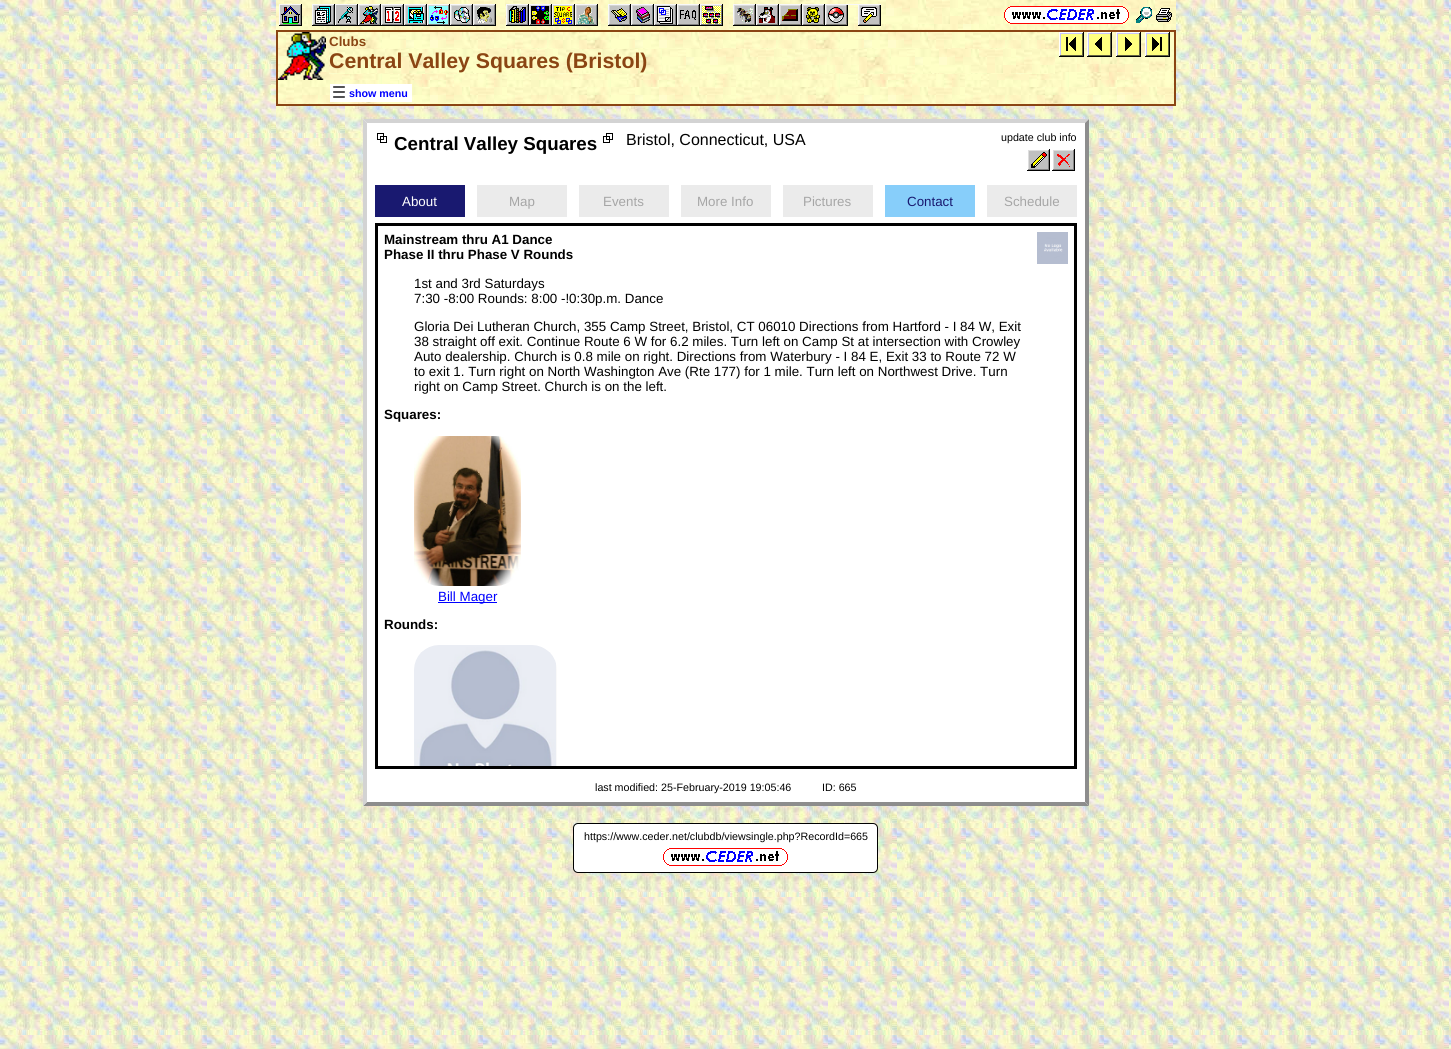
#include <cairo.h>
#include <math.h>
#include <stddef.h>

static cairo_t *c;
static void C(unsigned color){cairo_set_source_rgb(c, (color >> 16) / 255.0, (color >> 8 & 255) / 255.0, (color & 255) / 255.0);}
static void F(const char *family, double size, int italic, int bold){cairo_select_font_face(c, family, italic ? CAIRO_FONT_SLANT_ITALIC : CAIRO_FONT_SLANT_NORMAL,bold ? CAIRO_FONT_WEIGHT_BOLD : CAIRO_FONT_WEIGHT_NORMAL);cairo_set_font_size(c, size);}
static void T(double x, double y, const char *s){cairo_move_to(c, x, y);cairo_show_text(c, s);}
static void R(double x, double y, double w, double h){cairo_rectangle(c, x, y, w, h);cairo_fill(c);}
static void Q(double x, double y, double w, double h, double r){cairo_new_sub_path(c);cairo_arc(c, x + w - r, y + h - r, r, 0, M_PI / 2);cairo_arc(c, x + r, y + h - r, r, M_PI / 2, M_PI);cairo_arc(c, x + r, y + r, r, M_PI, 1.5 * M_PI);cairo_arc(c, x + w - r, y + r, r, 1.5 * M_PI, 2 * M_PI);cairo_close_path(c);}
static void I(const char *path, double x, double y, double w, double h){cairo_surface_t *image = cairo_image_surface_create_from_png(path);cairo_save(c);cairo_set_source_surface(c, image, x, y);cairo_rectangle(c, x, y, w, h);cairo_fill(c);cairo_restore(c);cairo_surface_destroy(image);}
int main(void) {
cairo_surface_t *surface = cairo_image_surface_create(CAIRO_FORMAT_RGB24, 1451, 1049);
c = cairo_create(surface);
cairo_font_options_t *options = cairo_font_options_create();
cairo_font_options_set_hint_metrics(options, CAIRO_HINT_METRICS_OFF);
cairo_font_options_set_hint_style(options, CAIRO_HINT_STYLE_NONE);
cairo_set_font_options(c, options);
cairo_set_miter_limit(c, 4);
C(0xffffff);
cairo_paint(c);
I("1.png",0,0,1451,1049);
I("2.png",276,0,900,30);
I("3.png",1004,6,125,18);
I("4.png",1136,7,16,16);
I("5.png",1156,8,16,14);
I("6.png",279,4,602,22);
I("7.png",278,32,896,72);
cairo_rectangle(c,277,31,898,74);
C(0x8b4513);
cairo_stroke(c);
I("8.png",278,32,48,48);
F("Liberation Sans",13.35,0,1);
T(329,46,"Clubs");
I("9.png",329,49,726,25);
F("Liberation Sans",21.3,0,1);
T(329,68,"Central Valley Squares (Bristol)");
I("10.png",1084,32,90,25);
I("11.png",1059,32,25,25);
I("12.png",1087,32,25,25);
I("13.png",1116,32,25,25);
I("14.png",1145,32,25,25);
C(0xffffff);
R(330,84,82,18);
I("15.png",333,86,12,12);
F("Liberation Sans",10.7,0,1);
C(0x0000ff);
T(349,97,"show menu");
C(0xffffff);
R(363,119,726,687);
C(0xd3d3d3);
cairo_new_path(c);
cairo_move_to(c,363,119);
cairo_line_to(c,1089,119);
cairo_line_to(c,1085,123);
cairo_line_to(c,367,123);
cairo_close_path(c);
cairo_fill(c);
C(0x8d8d8d);
cairo_new_path(c);
cairo_move_to(c,1089,119);
cairo_line_to(c,1089,806);
cairo_line_to(c,1085,802);
cairo_line_to(c,1085,123);
cairo_close_path(c);
cairo_fill(c);
cairo_new_path(c);
cairo_move_to(c,1089,806);
cairo_line_to(c,363,806);
cairo_line_to(c,367,802);
cairo_line_to(c,1085,802);
cairo_close_path(c);
cairo_fill(c);
C(0xd3d3d3);
cairo_new_path(c);
cairo_move_to(c,363,806);
cairo_line_to(c,363,119);
cairo_line_to(c,367,123);
cairo_line_to(c,367,802);
cairo_close_path(c);
cairo_fill(c);
I("16.png",377,133,10,10);
F("Liberation Sans",18.75,0,1);
C(0x000000);
T(394,150,"Central Valley Squares");
I("17.png",603,133,10,10);
F("Liberation Sans",16,0,0);
T(626,145,"Bristol, Connecticut, USA");
F("Liberation Sans",10.7,0,0);
T(1001,141,"update club info");
I("18.png",1027,149,23,22);
I("19.png",1052,149,23,22);
C(0x191970);
R(375,185,90,32);
F("Liberation Sans",13.35,0,0);
C(0xffffff);
T(402,206,"About");
C(0xebebeb);
R(477,185,90,32);
C(0xa6a6a6);
T(509,206,"Map");
C(0xebebeb);
R(579,185,90,32);
C(0xa6a6a6);
T(603,206,"Events");
C(0xebebeb);
R(681,185,90,32);
C(0xa6a6a6);
T(697,206,"More Info");
C(0xebebeb);
R(783,185,90,32);
C(0xa6a6a6);
T(803,206,"Pictures");
C(0x87cefa);
R(885,185,90,32);
C(0x191970);
T(907,206,"Contact");
C(0xebebeb);
R(987,185,90,32);
C(0xa6a6a6);
T(1004,206,"Schedule");
cairo_rectangle(c,376.5,224.5,699,543);
C(0x000000);
cairo_set_line_width(c,3);
cairo_stroke(c);
F("Liberation Sans",13.35,0,1);
T(384,244,"Mainstream thru A1 Dance");
T(384,259,"Phase II thru Phase V Rounds");
F("Liberation Sans",13.35,0,0);
T(414,288,"1st and 3rd Saturdays");
T(414,303,"7:30 -8:00 Rounds: 8:00 -!0:30p.m. Dance");
T(414,331,"Gloria Dei Lutheran Church, 355 Camp Street, Bristol, CT 06010 Directions from Hartford - I 84 W, Exit");
T(414,346,"38 straight off exit. Continue Route 6 W for 6.2 miles. Turn left on Camp St at intersection with Crowley");
T(414,361,"Auto dealership. Church is 0.8 mile on right. Directions from Waterbury - I 84 E, Exit 33 to Route 72 W");
T(414,376,"to exit 1. Turn right on North Washington Ave (Rte 177) for 1 mile. Turn left on Northwest Drive. Turn");
T(414,391,"right on Camp Street. Church is on the left.");
F("Liberation Sans",13.35,0,1);
T(384,419,"Squares:");
I("20.png",414,436,107,150);
C(0x0000ff);
R(438,602,59,1);
F("Liberation Sans",13.35,0,0);
T(438,601,"Bill Mager");
F("Liberation Sans",13.35,0,1);
C(0x000000);
T(384,629,"Rounds:");
I("21.png",414,645,143,121);
I("22.png",1037,232,31,32);
F("Liberation Sans",10.7,0,0);
T(595,791,"last modified: 25-February-2019 19:05:46");
T(822,791,"ID: 665");
C(0xffffff);
Q(573.5,823.5,304,49,4.5);
cairo_fill_preserve(c);
C(0x000000);
cairo_set_line_width(c,1);
cairo_stroke(c);
T(584,840,"https://www.ceder.net/clubdb/viewsingle.php?RecordId=665");
I("23.png",663,848,125,18);
cairo_surface_write_to_png(surface, "o.png");
cairo_font_options_destroy(options);
cairo_destroy(c);
cairo_surface_destroy(surface);
return 0;
}
